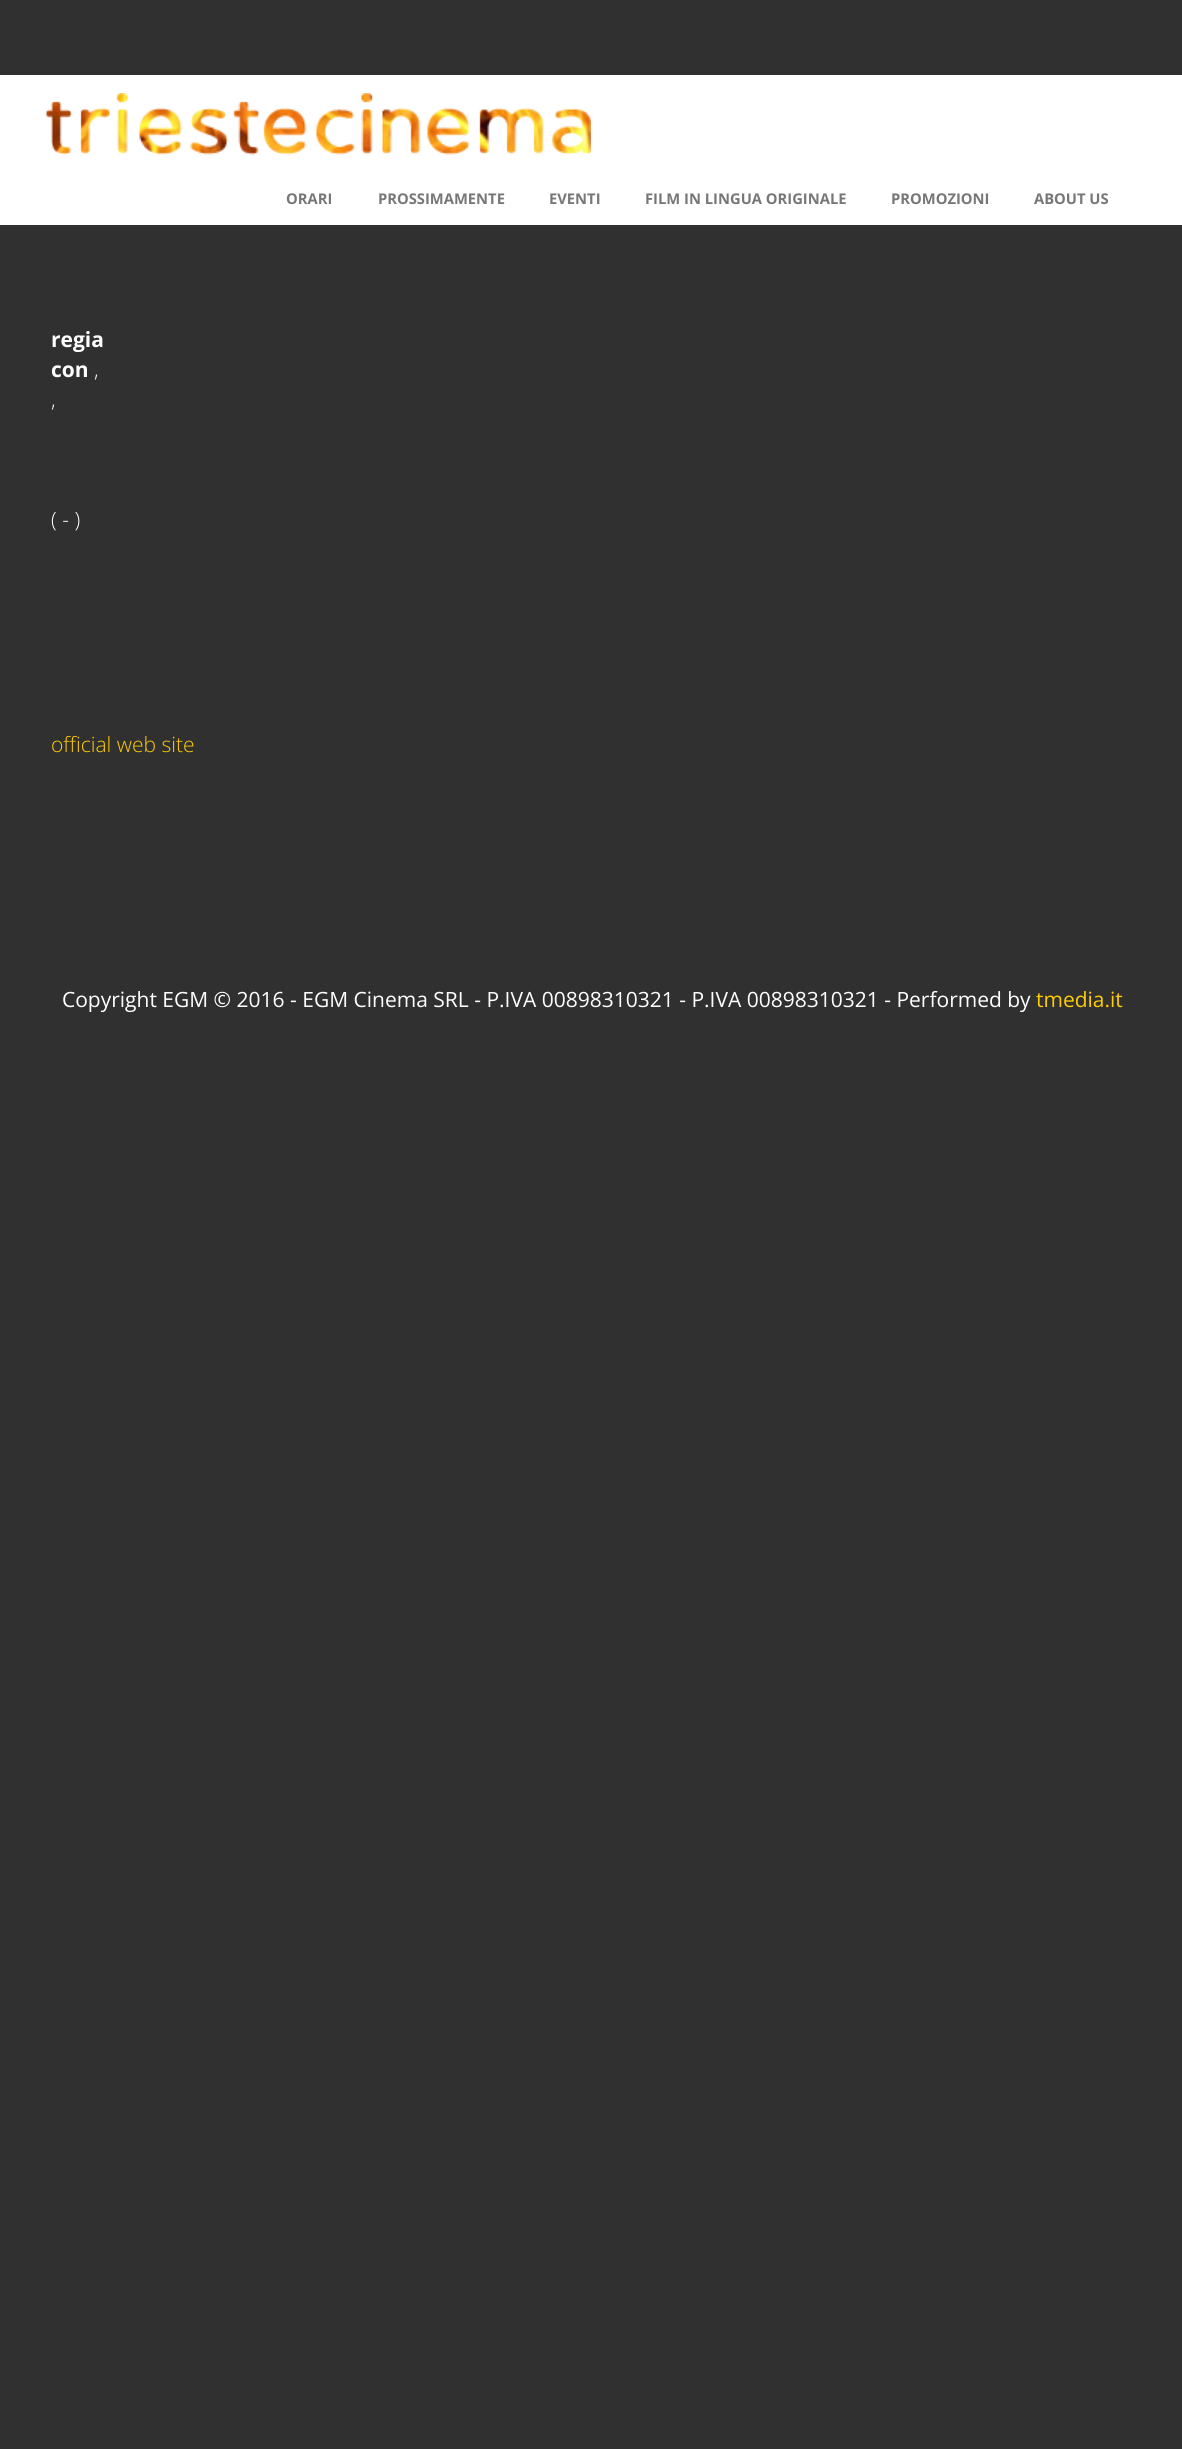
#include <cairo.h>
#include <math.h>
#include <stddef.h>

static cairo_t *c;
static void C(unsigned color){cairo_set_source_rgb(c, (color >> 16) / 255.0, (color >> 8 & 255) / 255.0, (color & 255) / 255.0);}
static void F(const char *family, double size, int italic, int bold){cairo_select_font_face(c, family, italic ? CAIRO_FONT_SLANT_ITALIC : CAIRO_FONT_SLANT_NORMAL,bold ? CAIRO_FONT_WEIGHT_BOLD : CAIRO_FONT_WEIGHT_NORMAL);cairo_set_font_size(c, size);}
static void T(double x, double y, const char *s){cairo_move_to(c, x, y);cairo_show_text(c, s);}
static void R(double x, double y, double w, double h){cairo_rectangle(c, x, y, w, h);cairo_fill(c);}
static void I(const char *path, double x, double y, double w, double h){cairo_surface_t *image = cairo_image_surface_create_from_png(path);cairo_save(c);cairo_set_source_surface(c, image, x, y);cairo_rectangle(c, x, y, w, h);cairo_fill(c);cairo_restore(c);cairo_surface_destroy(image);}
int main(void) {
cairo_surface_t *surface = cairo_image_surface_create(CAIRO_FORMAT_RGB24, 1182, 2449);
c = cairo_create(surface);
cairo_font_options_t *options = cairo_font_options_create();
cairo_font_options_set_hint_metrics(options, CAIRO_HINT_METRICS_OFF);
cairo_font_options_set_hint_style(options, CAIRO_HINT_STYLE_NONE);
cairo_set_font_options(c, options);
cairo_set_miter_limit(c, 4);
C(0x303030);
cairo_paint(c);
C(0xffffff);
R(0,75,1182,150);
I("1.png",46,93,545,62);
F("Open Sans",14.75,0,1);
C(0x777777);
T(286,204,"ORARI");
T(378,204,"PROSSIMAMENTE");
T(549,204,"EVENTI");
T(645,204,"FILM IN LINGUA ORIGINALE");
T(891,204,"PROMOZIONI");
T(1034,204,"ABOUT US");
F("Open Sans",21,0,1);
C(0xffffff);
T(51,347,"regia");
T(51,377,"con");
F("Open Sans Light",21,0,0);
T(94,377,",");
T(51,407,",");
T(51,527,"( - )");
C(0xffcc00);
T(51,752,"official web site");
F("Open Sans",21,0,0);
C(0xffffff);
T(62,1007,"Copyright EGM © 2016 - EGM Cinema SRL - P.IVA 00898310321 - P.IVA 00898310321 - Performed by");
C(0xffcc00);
T(1036,1007,"tmedia.it");
cairo_surface_write_to_png(surface, "o.png");
cairo_font_options_destroy(options);
cairo_destroy(c);
cairo_surface_destroy(surface);
return 0;
}
